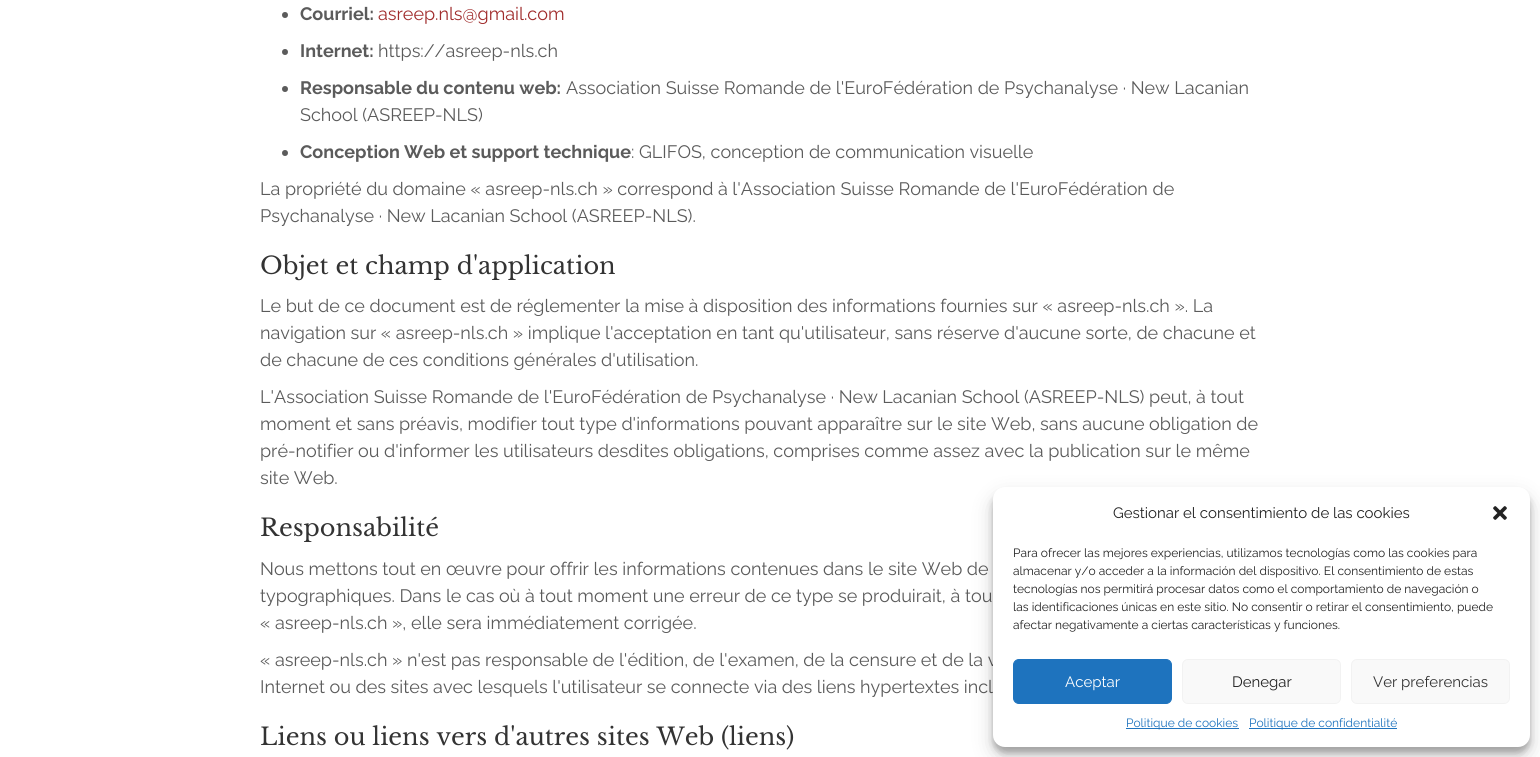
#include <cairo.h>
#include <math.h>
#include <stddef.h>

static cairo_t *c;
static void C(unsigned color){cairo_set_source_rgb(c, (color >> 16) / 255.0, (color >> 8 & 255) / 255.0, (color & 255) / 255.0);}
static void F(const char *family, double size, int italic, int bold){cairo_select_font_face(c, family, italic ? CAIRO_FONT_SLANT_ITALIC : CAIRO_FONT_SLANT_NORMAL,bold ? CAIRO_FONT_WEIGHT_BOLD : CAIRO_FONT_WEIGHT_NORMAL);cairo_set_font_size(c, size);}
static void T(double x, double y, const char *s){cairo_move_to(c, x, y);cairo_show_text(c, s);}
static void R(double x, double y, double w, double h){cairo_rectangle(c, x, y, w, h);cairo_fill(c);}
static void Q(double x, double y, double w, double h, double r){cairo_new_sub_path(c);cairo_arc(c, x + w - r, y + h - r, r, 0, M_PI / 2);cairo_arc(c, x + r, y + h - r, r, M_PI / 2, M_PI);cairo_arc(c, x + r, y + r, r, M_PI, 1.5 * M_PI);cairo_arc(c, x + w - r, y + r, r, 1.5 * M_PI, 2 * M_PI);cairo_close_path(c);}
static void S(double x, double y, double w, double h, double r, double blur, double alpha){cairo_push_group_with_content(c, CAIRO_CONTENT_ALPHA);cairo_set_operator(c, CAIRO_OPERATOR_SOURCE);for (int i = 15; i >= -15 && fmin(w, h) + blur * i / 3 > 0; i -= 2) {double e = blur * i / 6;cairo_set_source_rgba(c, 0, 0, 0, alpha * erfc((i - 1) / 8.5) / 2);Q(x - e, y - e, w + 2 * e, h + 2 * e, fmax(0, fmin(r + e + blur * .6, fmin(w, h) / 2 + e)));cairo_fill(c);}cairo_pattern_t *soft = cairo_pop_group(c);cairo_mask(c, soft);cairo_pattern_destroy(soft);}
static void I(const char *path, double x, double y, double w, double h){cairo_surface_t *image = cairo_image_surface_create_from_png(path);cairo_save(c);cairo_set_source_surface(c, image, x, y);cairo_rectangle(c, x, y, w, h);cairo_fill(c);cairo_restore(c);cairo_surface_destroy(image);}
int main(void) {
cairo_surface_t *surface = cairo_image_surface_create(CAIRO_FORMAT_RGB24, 1540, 757);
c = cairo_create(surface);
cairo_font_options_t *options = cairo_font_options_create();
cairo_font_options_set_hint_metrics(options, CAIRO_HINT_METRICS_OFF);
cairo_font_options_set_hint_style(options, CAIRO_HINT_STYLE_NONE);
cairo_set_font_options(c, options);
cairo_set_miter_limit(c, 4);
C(0xffffff);
cairo_paint(c);
C(0x5b5b5b);
cairo_arc(c,285,15,3,0,2 * M_PI);
cairo_fill(c);
F("Raleway",18,0,1);
T(300,20,"Courriel:");
F("Raleway",18,0,0);
C(0xa02c2c);
T(378,20,"asreep.nls@gmail.com");
C(0x5b5b5b);
cairo_new_path(c);
cairo_arc(c,285,52,3,0,2 * M_PI);
cairo_fill(c);
F("Raleway",18,0,1);
T(300,57,"Internet:");
F("Raleway",18,0,0);
T(378,57,"https://asreep-nls.ch");
cairo_new_path(c);
cairo_arc(c,285,89,3,0,2 * M_PI);
cairo_fill(c);
F("Raleway",18,0,1);
T(300,94,"Responsable du contenu web:");
F("Raleway",18,0,0);
T(566,94,"Association Suisse Romande de l'EuroFédération de Psychanalyse · New Lacanian");
T(300,121,"School (ASREEP-NLS)");
cairo_new_path(c);
cairo_arc(c,285,153,3,0,2 * M_PI);
cairo_fill(c);
F("Raleway",18,0,1);
T(300,158,"Conception Web et support technique");
F("Raleway",18,0,0);
T(631,158,": GLIFOS, conception de communication visuelle");
T(260,195,"La propriété du domaine « asreep-nls.ch » correspond à l'Association Suisse Romande de l'EuroFédération de");
T(260,222,"Psychanalyse · New Lacanian School (ASREEP-NLS).");
F("Libre Baskerville",24,0,0);
C(0x333333);
T(260,274,"Objet et champ d'application");
F("Raleway",18,0,0);
C(0x5b5b5b);
T(260,312,"Le but de ce document est de réglementer la mise à disposition des informations fournies sur « asreep-nls.ch ». La");
T(260,339,"navigation sur « asreep-nls.ch » implique l'acceptation en tant qu'utilisateur, sans réserve d'aucune sorte, de chacune et");
T(260,366,"de chacune de ces conditions générales d'utilisation.");
T(260,403,"L'Association Suisse Romande de l'EuroFédération de Psychanalyse · New Lacanian School (ASREEP-NLS) peut, à tout");
T(260,430,"moment et sans préavis, modifier tout type d'informations pouvant apparaître sur le site Web, sans aucune obligation de");
T(260,457,"pré-notifier ou d'informer les utilisateurs desdites obligations, comprises comme assez avec la publication sur le même");
T(260,484,"site Web.");
F("Libre Baskerville",24,0,0);
C(0x333333);
T(260,536,"Responsabilité");
F("Raleway",18,0,0);
C(0x5b5b5b);
T(260,575,"Nous mettons tout en œuvre pour offrir les informations contenues dans le site Web de");
T(260,602,"typographiques. Dans le cas où à tout moment une erreur de ce type se produirait, à tou");
T(260,629,"« asreep-nls.ch », elle sera immédiatement corrigée.");
T(260,666,"« asreep-nls.ch » n'est pas responsable de l'édition, de l'examen, de la censure et de la v");
T(260,693,"Internet ou des sites avec lesquels l'utilisateur se connecte via des liens hypertextes incl");
F("Libre Baskerville",24,0,0);
C(0x333333);
T(260,745,"Liens ou liens vers d'autres sites Web (liens)");
C(0x000000);
S(993,493,537,260,12,3,.23);
S(993,497,537,260,12,10,.19);
C(0xffffff);
Q(993,487,537,260,12);
cairo_fill(c);
F("Raleway",15,0,0);
C(0x222222);
T(1113,518,"Gestionar el consentimiento de las cookies");
I("1.png",1493,506,14,14);
F("Raleway",12,0,0);
T(1013,557,"Para ofrecer las mejores experiencias, utilizamos tecnologías como las cookies para");
T(1013,575,"almacenar y/o acceder a la información del dispositivo. El consentimiento de estas");
T(1013,593,"tecnologías nos permitirá procesar datos como el comportamiento de navegación o");
T(1013,611,"las identificaciones únicas en este sitio. No consentir o retirar el consentimiento, puede");
T(1013,629,"afectar negativamente a ciertas características y funciones.");
C(0x1e73be);
Q(1013.5,659.5,158,44,5.5);
cairo_fill_preserve(c);
cairo_set_line_width(c,1);
cairo_stroke(c);
F("Raleway",15,0,0);
C(0xffffff);
T(1065,687,"Aceptar");
C(0xf9f9f9);
Q(1182.5,659.5,158,44,5.5);
cairo_fill_preserve(c);
C(0xf2f2f2);
cairo_stroke(c);
C(0x222222);
T(1232,687,"Denegar");
C(0xf9f9f9);
Q(1351.5,659.5,158,44,5.5);
cairo_fill_preserve(c);
C(0xf2f2f2);
cairo_stroke(c);
C(0x333333);
T(1373,687,"Ver preferencias");
C(0x1e73be);
R(1126,728,113,1);
F("Raleway",12,0,0);
T(1126,727,"Politique de cookies");
R(1249,728,148,1);
T(1249,727,"Politique de confidentialité");
cairo_surface_write_to_png(surface, "o.png");
cairo_font_options_destroy(options);
cairo_destroy(c);
cairo_surface_destroy(surface);
return 0;
}
